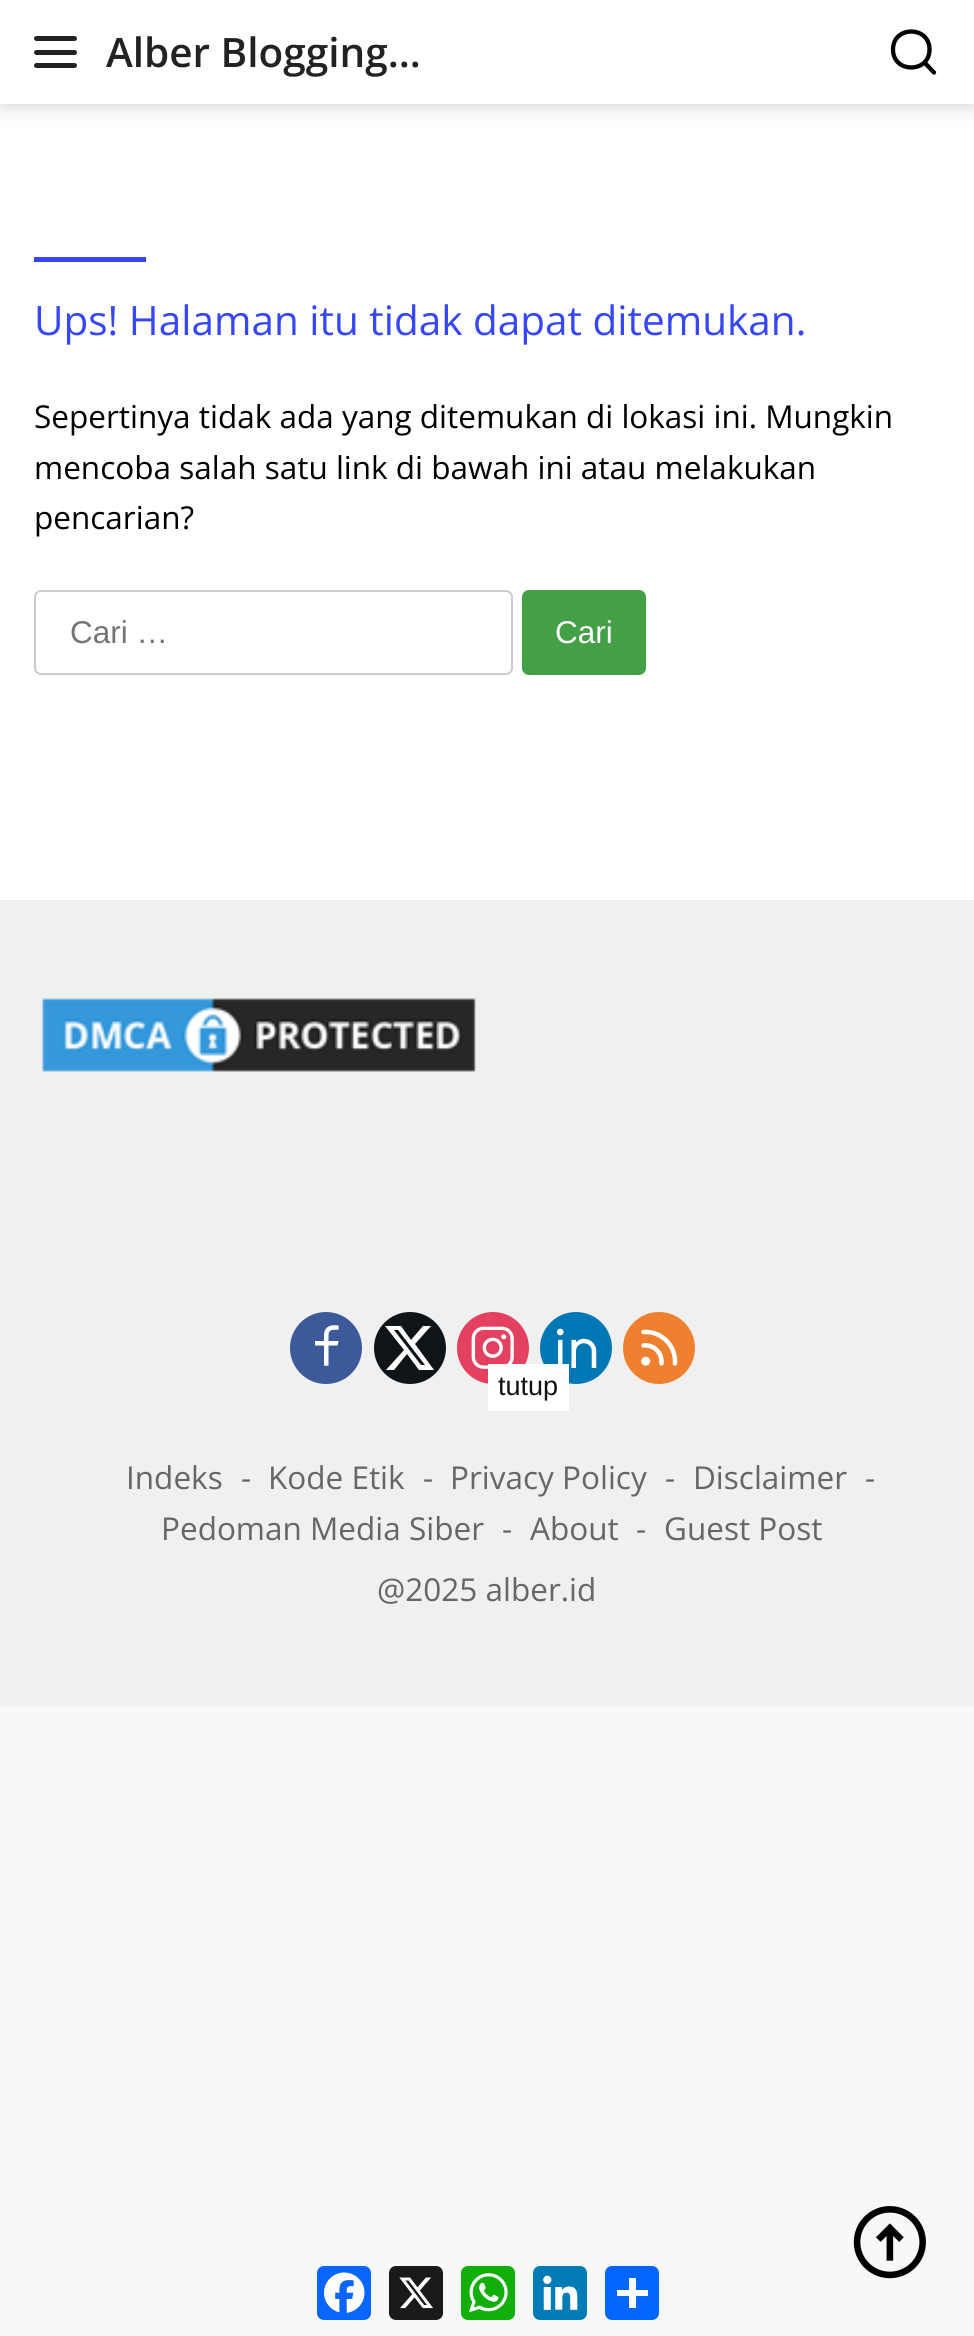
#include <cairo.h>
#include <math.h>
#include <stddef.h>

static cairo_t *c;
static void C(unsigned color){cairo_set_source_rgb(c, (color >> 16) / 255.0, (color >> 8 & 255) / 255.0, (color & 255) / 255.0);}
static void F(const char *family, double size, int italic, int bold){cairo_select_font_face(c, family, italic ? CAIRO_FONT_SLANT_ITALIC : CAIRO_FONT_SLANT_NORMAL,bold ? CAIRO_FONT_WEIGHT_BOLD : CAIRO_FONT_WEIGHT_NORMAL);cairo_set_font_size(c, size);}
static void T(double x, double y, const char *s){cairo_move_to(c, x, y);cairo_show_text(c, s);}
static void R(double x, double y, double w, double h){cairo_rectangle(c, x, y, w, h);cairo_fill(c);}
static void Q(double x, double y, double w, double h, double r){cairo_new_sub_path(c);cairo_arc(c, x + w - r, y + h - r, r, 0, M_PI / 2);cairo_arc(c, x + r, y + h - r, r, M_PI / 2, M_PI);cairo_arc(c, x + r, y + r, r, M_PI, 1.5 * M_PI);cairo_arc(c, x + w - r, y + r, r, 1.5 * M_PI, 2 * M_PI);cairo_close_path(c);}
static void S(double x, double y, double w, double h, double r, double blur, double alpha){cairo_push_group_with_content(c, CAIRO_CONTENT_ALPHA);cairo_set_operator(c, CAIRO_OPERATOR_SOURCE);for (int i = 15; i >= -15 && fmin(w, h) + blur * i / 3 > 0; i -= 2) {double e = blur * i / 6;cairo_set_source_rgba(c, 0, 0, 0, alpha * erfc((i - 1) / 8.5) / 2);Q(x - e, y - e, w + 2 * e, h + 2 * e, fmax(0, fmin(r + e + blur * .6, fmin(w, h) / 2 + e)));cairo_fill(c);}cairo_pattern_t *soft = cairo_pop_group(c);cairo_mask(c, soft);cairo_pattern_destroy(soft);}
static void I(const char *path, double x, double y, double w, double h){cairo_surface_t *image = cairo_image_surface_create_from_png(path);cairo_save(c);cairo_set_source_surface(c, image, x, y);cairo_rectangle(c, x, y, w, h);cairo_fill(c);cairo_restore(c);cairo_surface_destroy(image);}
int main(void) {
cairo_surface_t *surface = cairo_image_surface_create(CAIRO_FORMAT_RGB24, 974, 2336);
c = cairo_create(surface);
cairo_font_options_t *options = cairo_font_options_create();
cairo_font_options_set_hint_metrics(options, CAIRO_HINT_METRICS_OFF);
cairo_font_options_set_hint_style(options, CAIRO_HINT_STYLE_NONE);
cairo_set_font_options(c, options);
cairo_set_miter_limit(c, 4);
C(0xf8f8f8);
cairo_paint(c);
C(0xffffff);
R(0,104,974,796);
C(0x000000);
S(0,0,974,104,0,11,.2);
C(0xffffff);
R(0,0,974,104);
C(0x222222);
Q(34,36,43,5,2.5);
cairo_fill(c);
Q(34,50,43,5,2.5);
cairo_fill(c);
Q(34,63,43,5,2.5);
cairo_fill(c);
F("Open Sans SemiBold",40.5,0,0);
T(106,67,"Alber Blogging…");
cairo_new_path(c);
cairo_move_to(c,934,72.5);
cairo_line_to(c,924.5,62.5);
cairo_move_to(c,929.5,49.5);
cairo_curve_to(c,929.5,73.5,893,73.5,893,49.5);
cairo_curve_to(c,893,25.5,929.5,25.5,929.5,49.5);
cairo_close_path(c);
C(0x000000);
cairo_set_line_width(c,4.3);
cairo_set_line_cap(c,CAIRO_LINE_CAP_ROUND);
cairo_stroke(c);
C(0x3647f9);
R(34,257,112,5);
F("Open Sans",40.5,0,0);
T(34,335,"Ups! Halaman itu tidak dapat ditemukan.");
F("Open Sans",31.5,0,0);
C(0x000000);
T(34,428,"Sepertinya tidak ada yang ditemukan di lokasi ini. Mungkin");
T(34,479,"mencoba salah satu link di bawah ini atau melakukan");
T(34,529,"pencarian?");
Q(35,591,477,83,6);
C(0xcccccc);
cairo_set_line_width(c,2);
cairo_set_line_cap(c,CAIRO_LINE_CAP_BUTT);
cairo_stroke(c);
F("Liberation Sans",31.5,0,0);
C(0x757575);
T(70,643,"Cari …");
C(0x43a047);
Q(522,590,124,85,7);
cairo_fill(c);
C(0xffffff);
T(555,643,"Cari");
C(0xf0f0f0);
R(0,900,974,806);
I("1.png",42,998,434,74);
C(0x3c5a99);
cairo_arc(c,326,1348,36,0,2 * M_PI);
cairo_fill(c);
I("2.png",315,1325,24,41);
C(0x0f1419);
cairo_arc(c,410,1348,36,0,2 * M_PI);
cairo_fill(c);
C(0xffffff);
cairo_new_path(c);
cairo_move_to(c,423,1326);
cairo_line_to(c,431,1326);
cairo_line_to(c,415,1344);
cairo_line_to(c,434,1370);
cairo_line_to(c,419,1370);
cairo_line_to(c,407,1354);
cairo_line_to(c,394,1370);
cairo_line_to(c,386,1370);
cairo_line_to(c,404,1350);
cairo_line_to(c,385,1326);
cairo_line_to(c,401,1326);
cairo_line_to(c,411,1340);
cairo_close_path(c);
cairo_move_to(c,421,1365);
cairo_line_to(c,425,1365);
cairo_line_to(c,398,1330);
cairo_line_to(c,394,1330);
cairo_close_path(c);
cairo_fill(c);
C(0xe4405f);
cairo_arc(c,493,1348,36,0,2 * M_PI);
cairo_fill(c);
I("3.png",471,1326,43,43);
C(0x0077b5);
cairo_arc(c,576,1348,36,0,2 * M_PI);
cairo_fill(c);
I("4.png",556,1328,41,40);
C(0xee802f);
cairo_arc(c,659,1348,36,0,2 * M_PI);
cairo_fill(c);
I("5.png",641,1329,37,37);
F("Open Sans",31.5,0,0);
C(0x666666);
T(126,1489,"Indeks");
T(241,1489,"-");
T(268,1489,"Kode Etik");
T(423,1489,"-");
T(450,1489,"Privacy Policy");
T(665,1489,"-");
T(693,1489,"Disclaimer");
T(865,1489,"-");
T(161,1540,"Pedoman Media Siber");
T(502,1540,"-");
T(530,1540,"About");
T(636,1540,"-");
T(664,1540,"Guest Post");
T(377,1601,"@2025 alber.id");
C(0xffffff);
R(488,1364,81,47);
F("Liberation Sans",27,0,0);
C(0x111111);
T(498,1395,"tutup");
I("6.png",853,2206,73,73);
C(0x0866ff);
Q(317,2266,54,54,7);
cairo_fill(c);
I("7.png",324,2272,41,41);
C(0x1a1a1a);
Q(389,2266,54,54,7);
cairo_fill(c);
I("8.png",399,2277,34,32);
C(0x12af0a);
Q(461,2266,54,54,7);
cairo_fill(c);
I("9.png",468,2273,40,40);
C(0x007bb5);
Q(533,2266,54,54,7);
cairo_fill(c);
I("10.png",543,2275,35,35);
C(0x0166ff);
Q(605,2266,54,54,7);
cairo_fill(c);
C(0xffffff);
R(629,2278,7,30);
R(617,2290,31,6);
cairo_surface_write_to_png(surface, "o.png");
cairo_font_options_destroy(options);
cairo_destroy(c);
cairo_surface_destroy(surface);
return 0;
}
